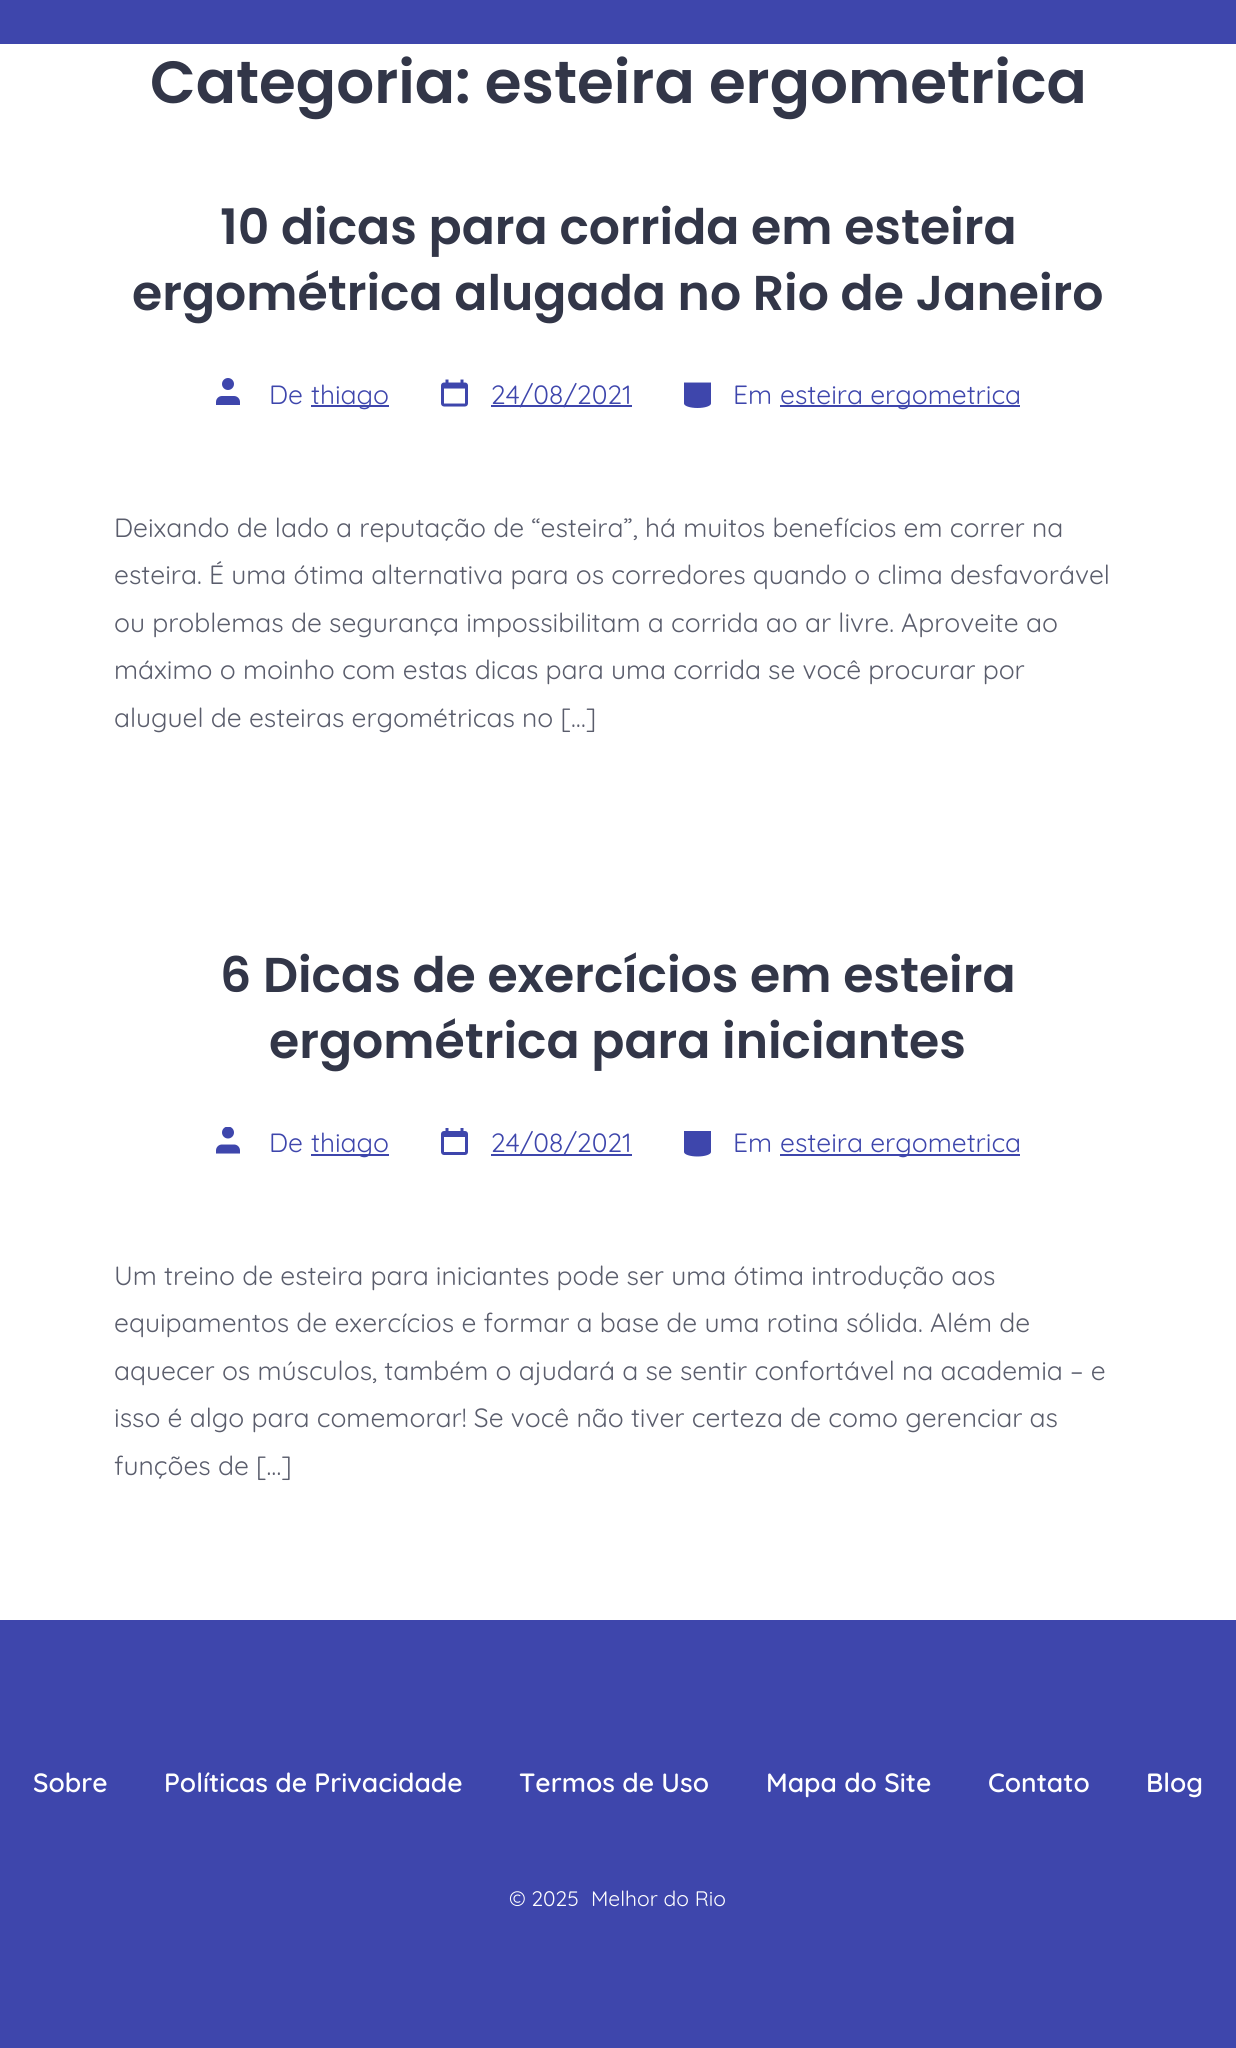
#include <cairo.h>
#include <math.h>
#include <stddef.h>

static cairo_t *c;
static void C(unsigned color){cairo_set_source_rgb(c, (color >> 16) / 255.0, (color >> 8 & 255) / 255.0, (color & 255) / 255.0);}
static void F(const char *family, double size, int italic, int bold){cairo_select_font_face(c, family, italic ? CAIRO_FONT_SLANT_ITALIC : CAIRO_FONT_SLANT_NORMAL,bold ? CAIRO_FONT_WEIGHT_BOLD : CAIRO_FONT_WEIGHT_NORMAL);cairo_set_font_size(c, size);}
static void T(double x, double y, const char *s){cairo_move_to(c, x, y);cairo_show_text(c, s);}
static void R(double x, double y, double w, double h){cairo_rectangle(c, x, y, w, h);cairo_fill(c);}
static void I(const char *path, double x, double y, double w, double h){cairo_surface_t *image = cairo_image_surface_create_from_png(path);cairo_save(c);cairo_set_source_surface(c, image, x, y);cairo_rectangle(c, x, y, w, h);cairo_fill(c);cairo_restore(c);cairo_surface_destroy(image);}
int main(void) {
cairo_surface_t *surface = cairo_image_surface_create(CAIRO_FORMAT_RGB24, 1236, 2048);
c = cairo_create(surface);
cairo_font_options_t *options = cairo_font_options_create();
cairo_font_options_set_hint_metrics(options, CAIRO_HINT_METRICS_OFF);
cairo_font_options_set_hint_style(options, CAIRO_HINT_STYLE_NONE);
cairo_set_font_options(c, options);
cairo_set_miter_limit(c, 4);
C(0xffffff);
cairo_paint(c);
C(0x3e46ac);
R(0,0,1236,44);
F("Poppins SemiBold",59.5,0,0);
C(0x323648);
T(150,103,"Categoria: esteira ergometrica");
F("Poppins SemiBold",48.9,0,0);
T(220,244,"10 dicas para corrida em esteira");
T(132,310,"ergométrica alugada no Rio de Janeiro");
I("1.png",216,378,24,27);
F("Quicksand",26.4,0,0);
C(0x3e46ac);
T(269,404,"De");
R(311,405,78,2);
T(311,404,"thiago");
I("2.png",441,379,27,28);
R(491,405,141,2);
T(491,404,"24/08/2021");
I("3.png",684,382,27,26);
T(733,404,"Em");
R(780,405,240,2);
T(780,404,"esteira ergometrica");
C(0x5a5d6c);
T(114,537,"Deixando de lado a reputação de “esteira”, há muitos benefícios em correr na");
T(114,584,"esteira. É uma ótima alternativa para os corredores quando o clima desfavorável");
T(114,632,"ou problemas de segurança impossibilitam a corrida ao ar livre. Aproveite ao");
T(114,679,"máximo o moinho com estas dicas para uma corrida se você procurar por");
T(114,727,"aluguel de esteiras ergométricas no […]");
F("Poppins SemiBold",48.9,0,0);
C(0x323648);
T(220,992,"6 Dicas de exercícios em esteira");
T(269,1058,"ergométrica para iniciantes");
I("4.png",216,1127,24,27);
F("Quicksand",26.4,0,0);
C(0x3e46ac);
T(269,1152,"De");
R(311,1154,78,2);
T(311,1152,"thiago");
I("5.png",441,1128,27,27);
R(491,1154,141,2);
T(491,1152,"24/08/2021");
I("6.png",684,1131,27,26);
T(733,1152,"Em");
R(780,1154,240,2);
T(780,1152,"esteira ergometrica");
C(0x5a5d6c);
T(114,1285,"Um treino de esteira para iniciantes pode ser uma ótima introdução aos");
T(114,1332,"equipamentos de exercícios e formar a base de uma rotina sólida. Além de");
T(114,1380,"aquecer os músculos, também o ajudará a se sentir confortável na academia – e");
T(114,1427,"isso é algo para comemorar! Se você não tiver certeza de como gerenciar as");
T(114,1475,"funções de […]");
C(0x3e46ac);
R(0,1620,1236,428);
F("Quicksand SemiBold",26.4,0,0);
C(0xffffff);
T(33,1792,"Sobre");
T(164,1792,"Políticas de Privacidade");
T(519,1792,"Termos de Uso");
T(766,1792,"Mapa do Site");
T(988,1792,"Contato");
T(1146,1792,"Blog");
F("Quicksand",21,0,0);
T(509,1906,"© 2025");
T(591,1906,"Melhor do Rio");
cairo_surface_write_to_png(surface, "o.png");
cairo_font_options_destroy(options);
cairo_destroy(c);
cairo_surface_destroy(surface);
return 0;
}
